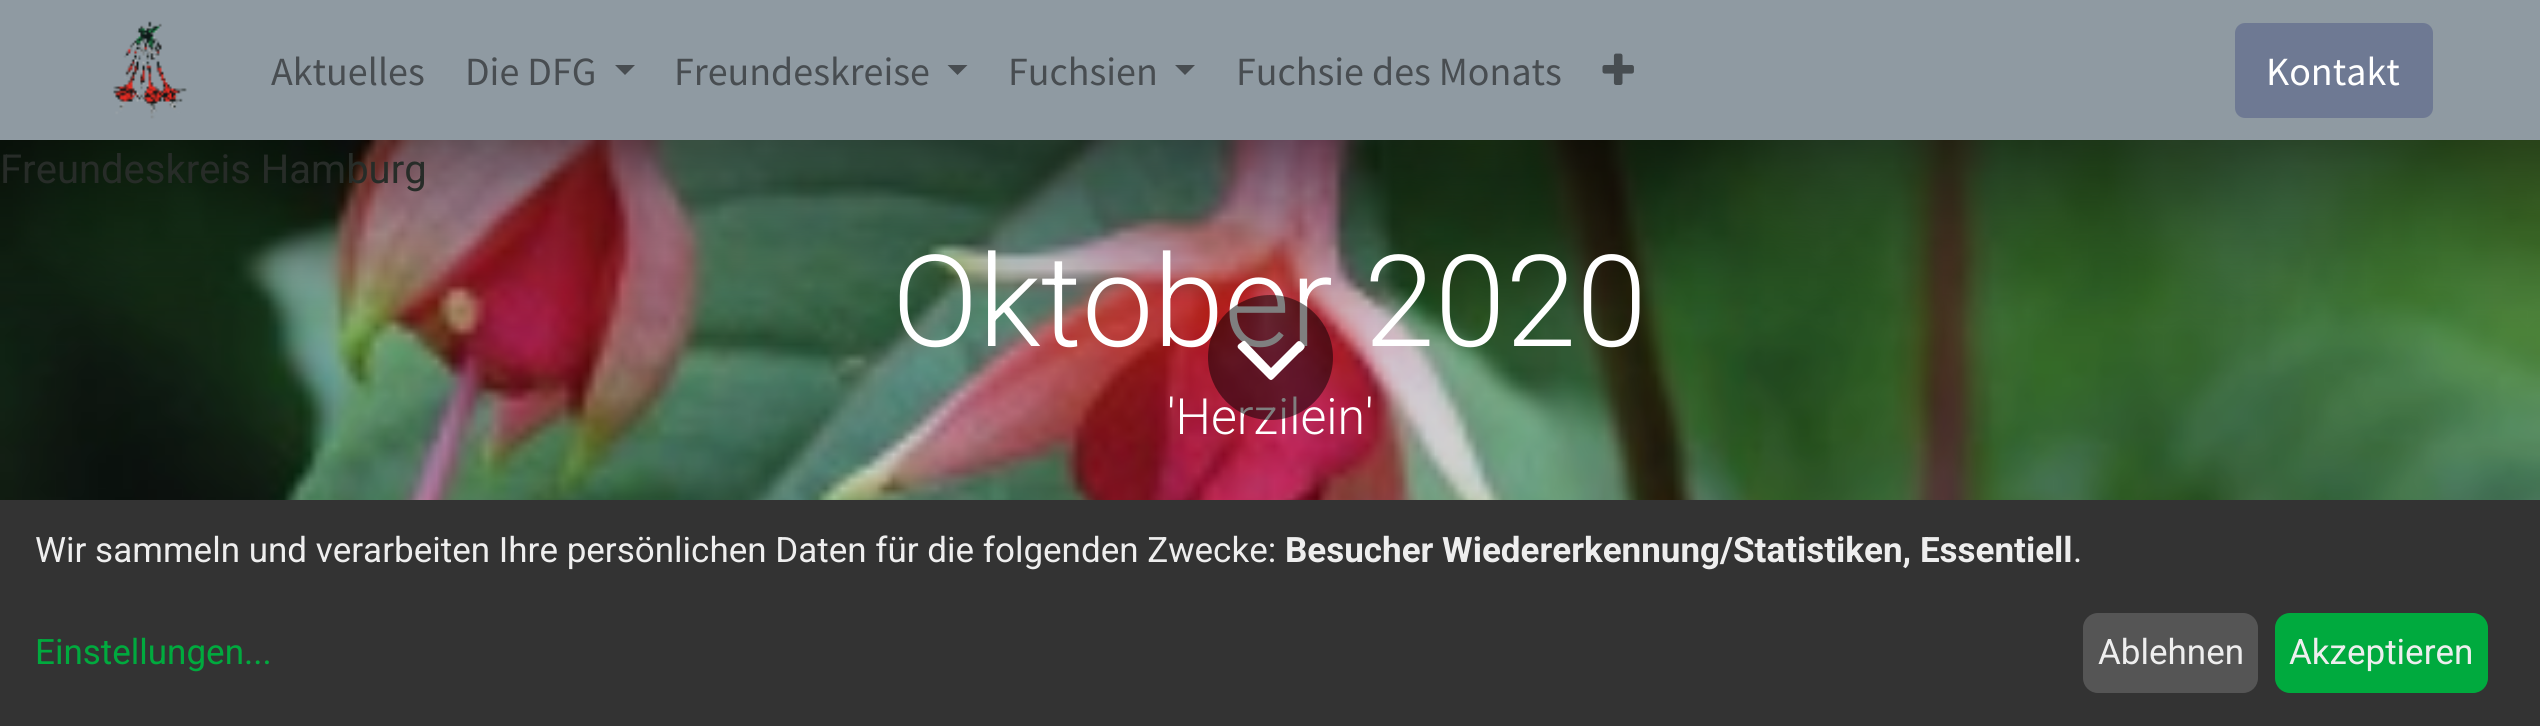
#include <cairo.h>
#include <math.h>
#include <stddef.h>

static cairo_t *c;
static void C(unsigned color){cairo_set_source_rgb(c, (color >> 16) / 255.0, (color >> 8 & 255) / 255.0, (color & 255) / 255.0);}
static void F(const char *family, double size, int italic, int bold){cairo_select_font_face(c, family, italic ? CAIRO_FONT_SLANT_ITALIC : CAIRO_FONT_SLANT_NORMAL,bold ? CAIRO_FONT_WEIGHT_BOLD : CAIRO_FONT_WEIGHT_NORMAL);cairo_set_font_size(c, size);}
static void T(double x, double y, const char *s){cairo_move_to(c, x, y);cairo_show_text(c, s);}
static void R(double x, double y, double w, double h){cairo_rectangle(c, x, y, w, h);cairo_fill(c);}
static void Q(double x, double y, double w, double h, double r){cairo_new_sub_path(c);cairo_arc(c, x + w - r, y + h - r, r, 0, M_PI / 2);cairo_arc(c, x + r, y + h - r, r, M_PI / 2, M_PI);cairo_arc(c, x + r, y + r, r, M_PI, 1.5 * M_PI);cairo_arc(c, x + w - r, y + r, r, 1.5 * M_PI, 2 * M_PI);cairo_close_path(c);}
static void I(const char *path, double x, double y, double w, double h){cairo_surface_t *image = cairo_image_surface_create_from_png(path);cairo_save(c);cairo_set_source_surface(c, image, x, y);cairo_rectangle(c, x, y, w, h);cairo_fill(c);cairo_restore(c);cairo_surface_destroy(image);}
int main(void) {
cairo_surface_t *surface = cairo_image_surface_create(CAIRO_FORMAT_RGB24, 2540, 726);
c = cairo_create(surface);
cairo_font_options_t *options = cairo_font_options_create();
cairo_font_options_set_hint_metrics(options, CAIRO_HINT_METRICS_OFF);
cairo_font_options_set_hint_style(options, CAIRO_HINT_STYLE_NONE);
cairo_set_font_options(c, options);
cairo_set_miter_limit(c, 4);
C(0xffffff);
cairo_paint(c);
C(0x8f9aa2);
R(0,0,2540,140);
I("1.png",113,21,74,98);
F("Source Sans Pro",40,0,0);
C(0x484d51);
T(271,85,"Aktuelles");
T(465,85,"Die DFG");
cairo_new_path(c);
cairo_move_to(c,615,65);
cairo_line_to(c,635,65);
cairo_line_to(c,625,75);
cairo_close_path(c);
cairo_fill(c);
T(674,85,"Freundeskreise");
cairo_new_path(c);
cairo_move_to(c,947.5,65);
cairo_line_to(c,967.5,65);
cairo_line_to(c,957.5,75);
cairo_close_path(c);
cairo_fill(c);
T(1008,85,"Fuchsien");
cairo_new_path(c);
cairo_move_to(c,1175,65);
cairo_line_to(c,1195,65);
cairo_line_to(c,1185,75);
cairo_close_path(c);
cairo_fill(c);
T(1236,85,"Fuchsie des Monats");
I("2.png",1602,53,32,32);
C(0x6e7993);
Q(2236.5,24.5,195,92,8.5);
cairo_fill_preserve(c);
cairo_set_line_width(c,3);
cairo_stroke(c);
C(0xffffff);
T(2266,85,"Kontakt");
I("3.png",0,140,2540,360);
F("Roboto",40,0,0);
C(0x272c28);
T(0,183,"Freundeskreis Hamburg");
F("Roboto Light",127.5,0,0);
C(0xffffff);
T(892,346,"Oktober 2020");
F("Roboto Light",50,0,0);
T(1167,434,"'Herzilein'");
cairo_set_source_rgba(c,0,0,0,0.5);
cairo_new_path(c);
cairo_arc(c,1270.5,357.5,62.5,0,2 * M_PI);
cairo_fill(c);
C(0xffffff);
cairo_new_path(c);
cairo_move_to(c,1304,345);
cairo_curve_to(c,1307,348,1299,353,1299,353);
cairo_line_to(c,1278,374);
cairo_curve_to(c,1270,382,1272,382,1264,374);
cairo_line_to(c,1238,348);
cairo_curve_to(c,1237,346,1238,345,1239,344);
cairo_curve_to(c,1241,343,1243,340,1245,341);
cairo_line_to(c,1271,368);
cairo_line_to(c,1297,342);
cairo_curve_to(c,1300,339,1303,344,1304,345);
cairo_close_path(c);
cairo_fill(c);
C(0x333333);
R(0,500,2540,226);
F("Roboto",35,0,0);
C(0xeeeeee);
T(35,562,"Wir sammeln und verarbeiten Ihre persönlichen Daten für die folgenden Zwecke:");
F("Roboto",35,0,1);
T(1285,562,"Besucher Wiedererkennung/Statistiken, Essentiell");
F("Roboto",35,0,0);
T(2073,562,".");
C(0x00aa3e);
T(35,664,"Einstellungen...");
C(0x555555);
Q(2083,613,175,80,15);
cairo_fill(c);
C(0xeeeeee);
T(2098,664,"Ablehnen");
C(0x00aa3e);
Q(2275,613,213,80,15);
cairo_fill(c);
C(0xeeeeee);
T(2289,664,"Akzeptieren");
cairo_surface_write_to_png(surface, "o.png");
cairo_font_options_destroy(options);
cairo_destroy(c);
cairo_surface_destroy(surface);
return 0;
}
